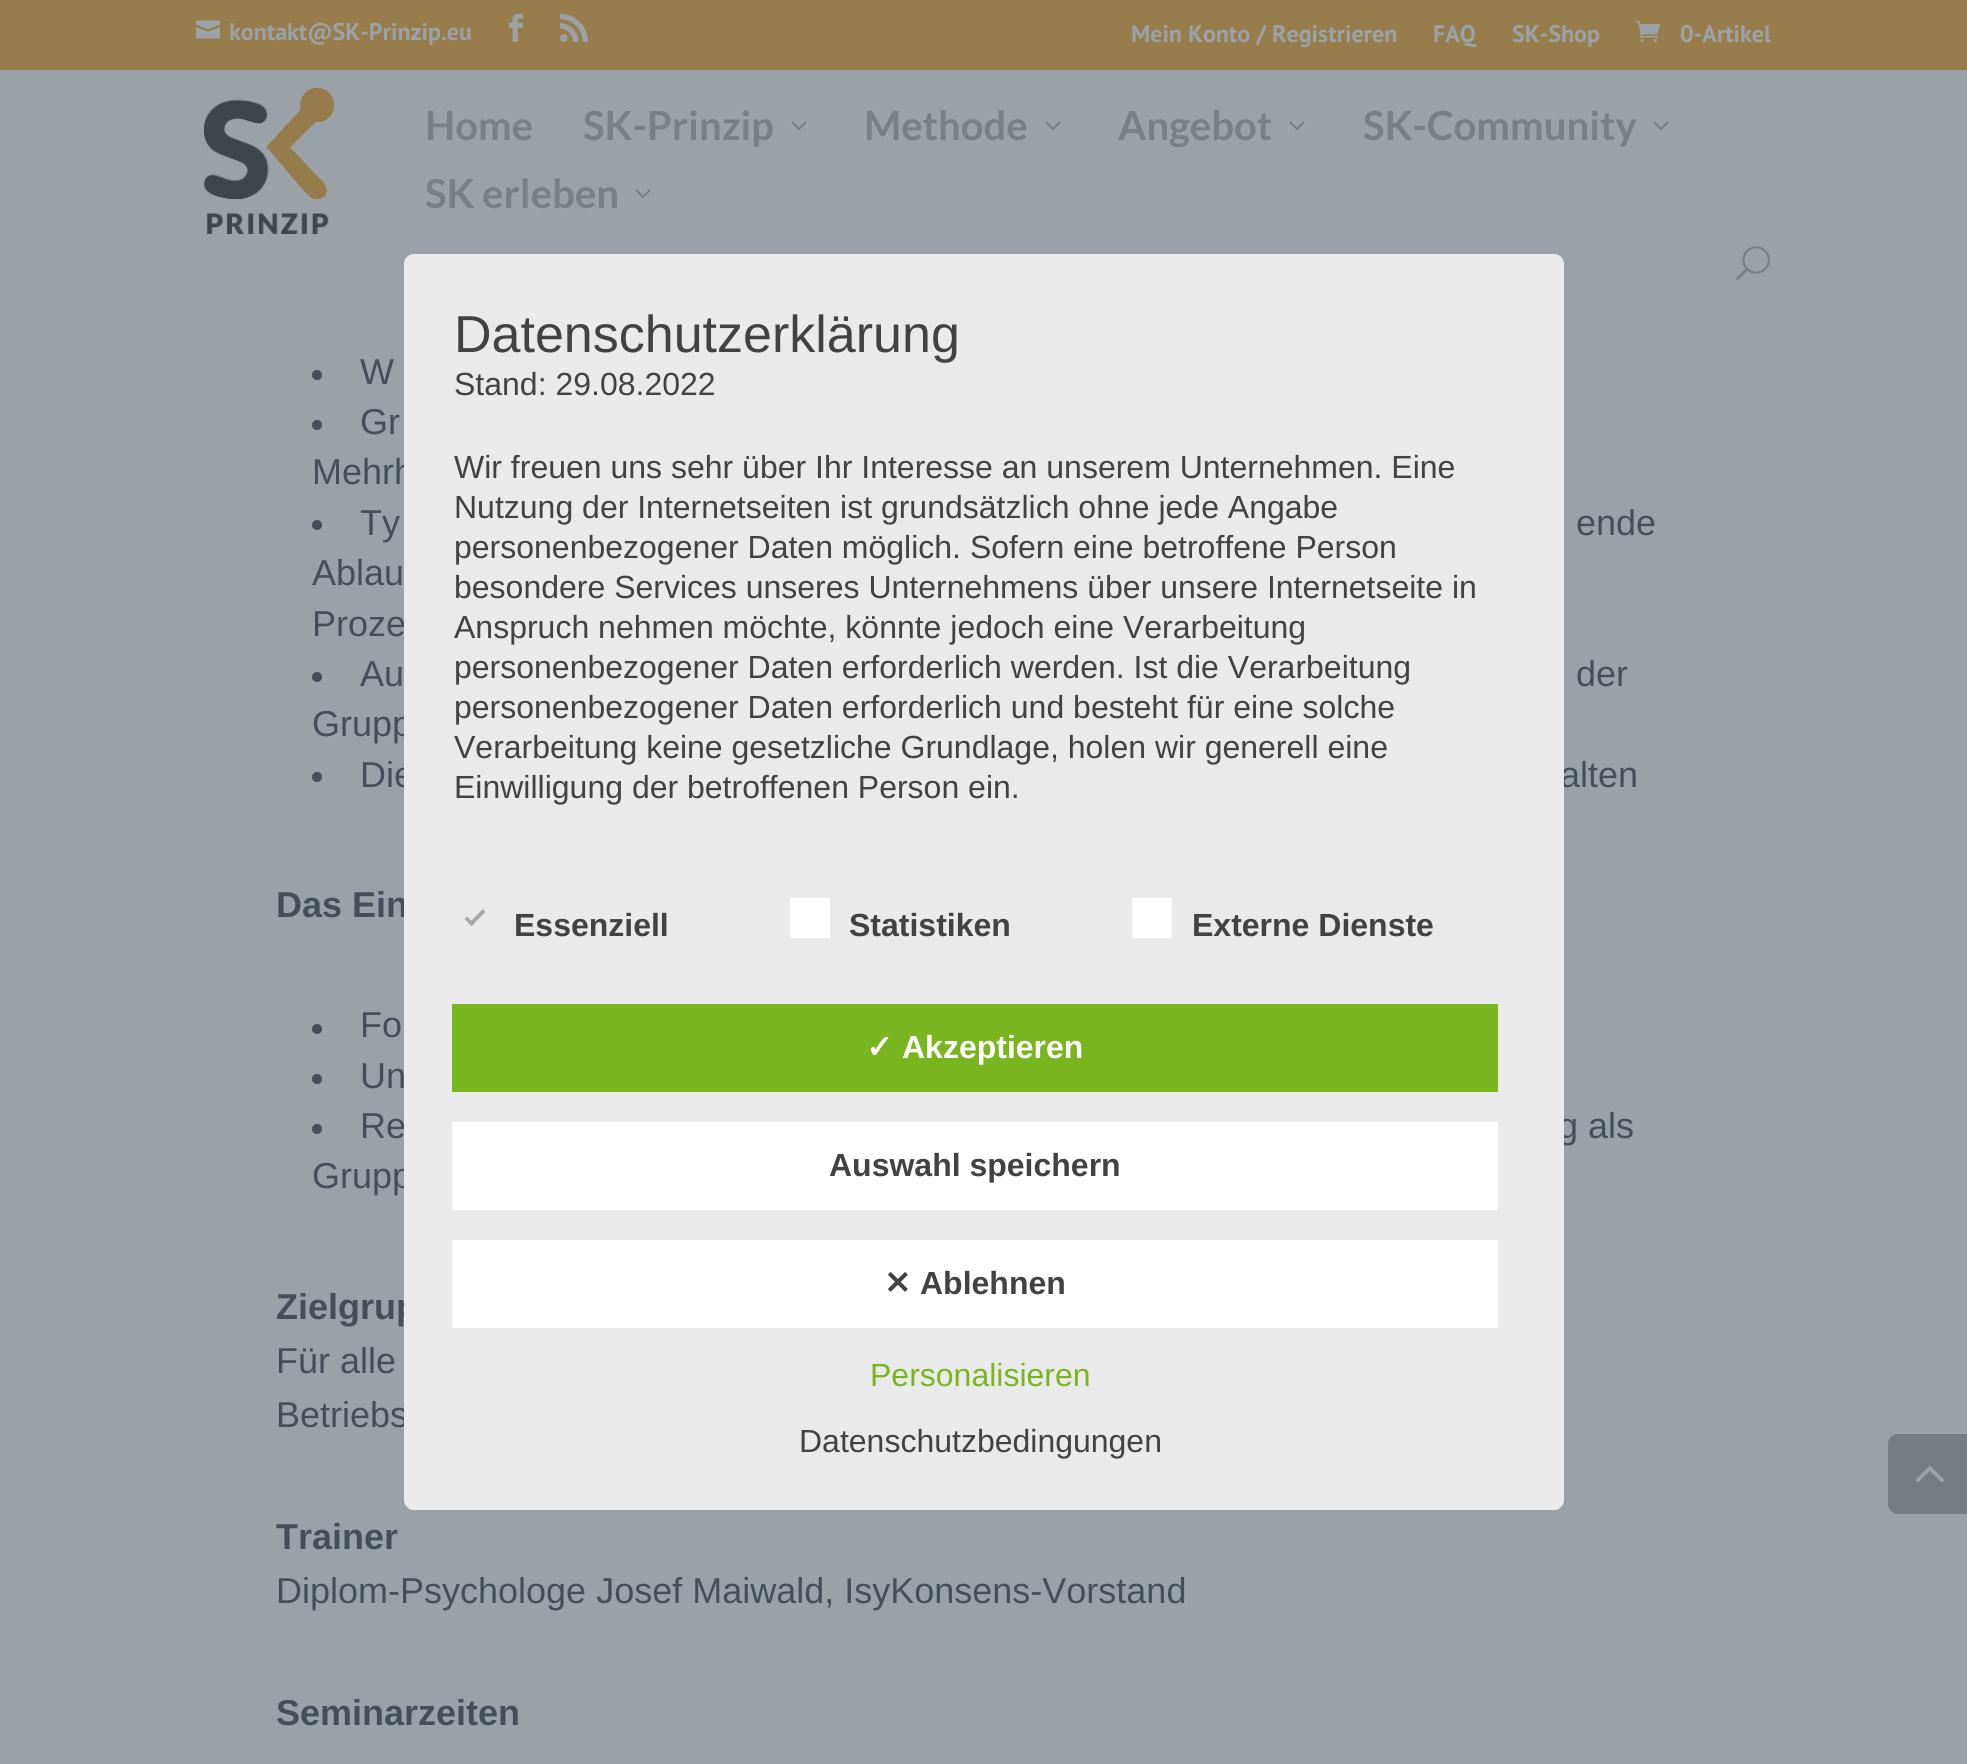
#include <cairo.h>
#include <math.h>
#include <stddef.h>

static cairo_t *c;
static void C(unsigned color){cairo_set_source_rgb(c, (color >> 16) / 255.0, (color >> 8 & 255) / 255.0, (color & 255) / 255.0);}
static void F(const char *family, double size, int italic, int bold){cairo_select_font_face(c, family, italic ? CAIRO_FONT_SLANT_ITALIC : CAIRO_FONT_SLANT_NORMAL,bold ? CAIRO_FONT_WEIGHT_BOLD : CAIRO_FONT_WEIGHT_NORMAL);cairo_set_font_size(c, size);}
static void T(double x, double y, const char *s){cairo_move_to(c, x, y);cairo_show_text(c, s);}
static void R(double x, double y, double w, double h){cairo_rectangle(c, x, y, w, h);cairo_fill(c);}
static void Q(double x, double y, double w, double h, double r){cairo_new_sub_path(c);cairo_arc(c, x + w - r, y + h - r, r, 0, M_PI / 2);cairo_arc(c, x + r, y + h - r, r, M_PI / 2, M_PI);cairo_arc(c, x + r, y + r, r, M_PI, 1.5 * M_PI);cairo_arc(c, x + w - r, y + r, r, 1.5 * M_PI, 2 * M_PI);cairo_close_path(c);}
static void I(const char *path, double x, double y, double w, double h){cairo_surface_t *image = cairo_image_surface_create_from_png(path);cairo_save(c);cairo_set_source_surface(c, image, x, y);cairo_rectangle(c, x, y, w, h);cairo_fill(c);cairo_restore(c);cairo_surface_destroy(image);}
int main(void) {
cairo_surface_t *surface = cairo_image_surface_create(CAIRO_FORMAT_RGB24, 1967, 1764);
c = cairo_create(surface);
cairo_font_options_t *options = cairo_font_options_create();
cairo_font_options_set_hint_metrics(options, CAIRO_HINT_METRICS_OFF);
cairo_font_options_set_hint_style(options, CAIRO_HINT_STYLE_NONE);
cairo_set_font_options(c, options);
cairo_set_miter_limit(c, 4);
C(0x9ba2a7);
cairo_paint(c);
C(0x967d4b);
R(0,0,1967,70);
I("1.png",196,20,24,19);
F("PT Sans",24,0,1);
C(0x9ba2a7);
T(229,40,"kontakt@SK-Prinzip.eu");
I("2.png",509,13,15,29);
I("3.png",560,13,28,29);
T(1131,42,"Mein Konto / Registrieren");
T(1433,42,"FAQ");
T(1512,42,"SK-Shop");
I("4.png",1636,21,24,21);
T(1680,42,"0-Artikel");
I("5.png",204,88,130,146);
F("Lato",40,0,1);
C(0x788084);
T(425,140,"Home");
T(583,140,"SK-Prinzip");
I("6.png",791,121,16,9);
T(864,140,"Methode");
I("6.png",1045,121,16,9);
T(1118,140,"Angebot");
I("6.png",1289,121,16,9);
T(1363,140,"SK-Community");
I("6.png",1653,121,16,9);
T(425,208,"SK erleben");
I("6.png",635,189,16,9);
I("7.png",1735,246,35,35);
C(0x464f59);
cairo_arc(c,317,375,5,0,2 * M_PI);
cairo_fill(c);
F("Liberation Sans",36,0,0);
T(360,384,"W");
cairo_new_path(c);
cairo_arc(c,317,425,5,0,2 * M_PI);
cairo_fill(c);
T(360,434,"Gr");
T(312,484,"Mehrh");
cairo_new_path(c);
cairo_arc(c,317,525,5,0,2 * M_PI);
cairo_fill(c);
T(360,535,"Ty");
T(1576,535,"ende");
T(312,585,"Ablau");
T(312,636,"Proze");
cairo_new_path(c);
cairo_arc(c,317,677,5,0,2 * M_PI);
cairo_fill(c);
T(360,686,"Au");
T(1576,686,"der");
T(312,736,"Grupp");
cairo_new_path(c);
cairo_arc(c,317,777,5,0,2 * M_PI);
cairo_fill(c);
T(360,787,"Die");
T(1560,787,"alten");
F("Liberation Sans",36,0,1);
T(276,917,"Das Ein");
cairo_new_path(c);
cairo_arc(c,317,1029,5,0,2 * M_PI);
cairo_fill(c);
F("Liberation Sans",36,0,0);
T(360,1037,"Fo");
cairo_new_path(c);
cairo_arc(c,317,1079,5,0,2 * M_PI);
cairo_fill(c);
T(360,1088,"Un");
cairo_new_path(c);
cairo_arc(c,317,1129,5,0,2 * M_PI);
cairo_fill(c);
T(360,1138,"Re");
T(1558,1138,"g als");
T(312,1188,"Grupp");
F("Liberation Sans",36,0,1);
T(276,1319,"Zielgrup");
F("Liberation Sans",36,0,0);
T(276,1373,"Für alle");
T(276,1427,"Betriebs");
cairo_save(c);
cairo_rectangle(c,276,0,1416,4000);
cairo_clip(c);
F("Liberation Sans",36,0,1);
T(276,1549,"Trainer");
cairo_restore(c);
T(276,1603,"Diplom-Psychologe Josef Maiwald, IsyKonsens-Vorstand");
F("Liberation Sans",36,0,1);
T(276,1725,"Seminarzeiten");
C(0x767d82);
cairo_new_path(c);
cairo_move_to(c,1898,1434);
cairo_line_to(c,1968,1434);
cairo_line_to(c,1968,1514);
cairo_line_to(c,1898,1514);
cairo_curve_to(c,1892.5,1514,1888,1509.5,1888,1504);
cairo_line_to(c,1888,1444);
cairo_curve_to(c,1888,1438.5,1892.5,1434,1898,1434);
cairo_close_path(c);
cairo_fill(c);
I("8.png",1915,1466,29,17);
C(0xeaeaea);
Q(404,254,1160,1256,10);
cairo_fill(c);
F("Liberation Sans",52,0,0);
C(0x424242);
T(454,352,"Datenschutzerklärung");
F("Liberation Sans",32,0,0);
T(454,395,"Stand: 29.08.2022");
T(454,478,"Wir freuen uns sehr über Ihr Interesse an unserem Unternehmen. Eine");
T(454,518,"Nutzung der Internetseiten ist grundsätzlich ohne jede Angabe");
T(454,558,"personenbezogener Daten möglich. Sofern eine betroffene Person");
T(454,598,"besondere Services unseres Unternehmens über unsere Internetseite in");
T(454,638,"Anspruch nehmen möchte, könnte jedoch eine Verarbeitung");
T(454,678,"personenbezogener Daten erforderlich werden. Ist die Verarbeitung");
T(454,718,"personenbezogener Daten erforderlich und besteht für eine solche");
T(454,758,"Verarbeitung keine gesetzliche Grundlage, holen wir generell eine");
T(454,798,"Einwilligung der betroffenen Person ein.");
C(0xa7a7a7);
cairo_new_path(c);
cairo_move_to(c,483,909);
cairo_line_to(c,485.5,912);
cairo_line_to(c,471.5,926);
cairo_line_to(c,468.5,923.5);
cairo_close_path(c);
cairo_fill(c);
cairo_new_path(c);
cairo_move_to(c,467,916.5);
cairo_line_to(c,474.5,923.5);
cairo_line_to(c,471.5,926);
cairo_line_to(c,464.5,919);
cairo_close_path(c);
cairo_fill(c);
F("Liberation Sans",32,0,1);
C(0x424242);
T(514,936,"Essenziell");
C(0xffffff);
R(790,898,40,40);
C(0x424242);
T(849,936,"Statistiken");
C(0xffffff);
R(1132,898,40,40);
C(0x424242);
T(1192,936,"Externe Dienste");
C(0x79b51f);
R(452,1004,1046,88);
F("DejaVu Sans",32,0,1);
C(0xffffff);
T(866,1058,"✓");
F("Liberation Sans",32,0,1);
T(902,1058,"Akzeptieren");
R(452,1122,1046,88);
C(0x424242);
T(829,1176,"Auswahl speichern");
C(0xffffff);
R(452,1240,1046,88);
F("DejaVu Sans",32,0,1);
C(0x424242);
T(884,1294,"✕");
F("Liberation Sans",32,0,1);
T(920,1294,"Ablehnen");
F("Liberation Sans",32,0,0);
C(0x79b51f);
T(870,1386,"Personalisieren");
C(0x424242);
T(799,1452,"Datenschutzbedingungen");
cairo_surface_write_to_png(surface, "o.png");
cairo_font_options_destroy(options);
cairo_destroy(c);
cairo_surface_destroy(surface);
return 0;
}
